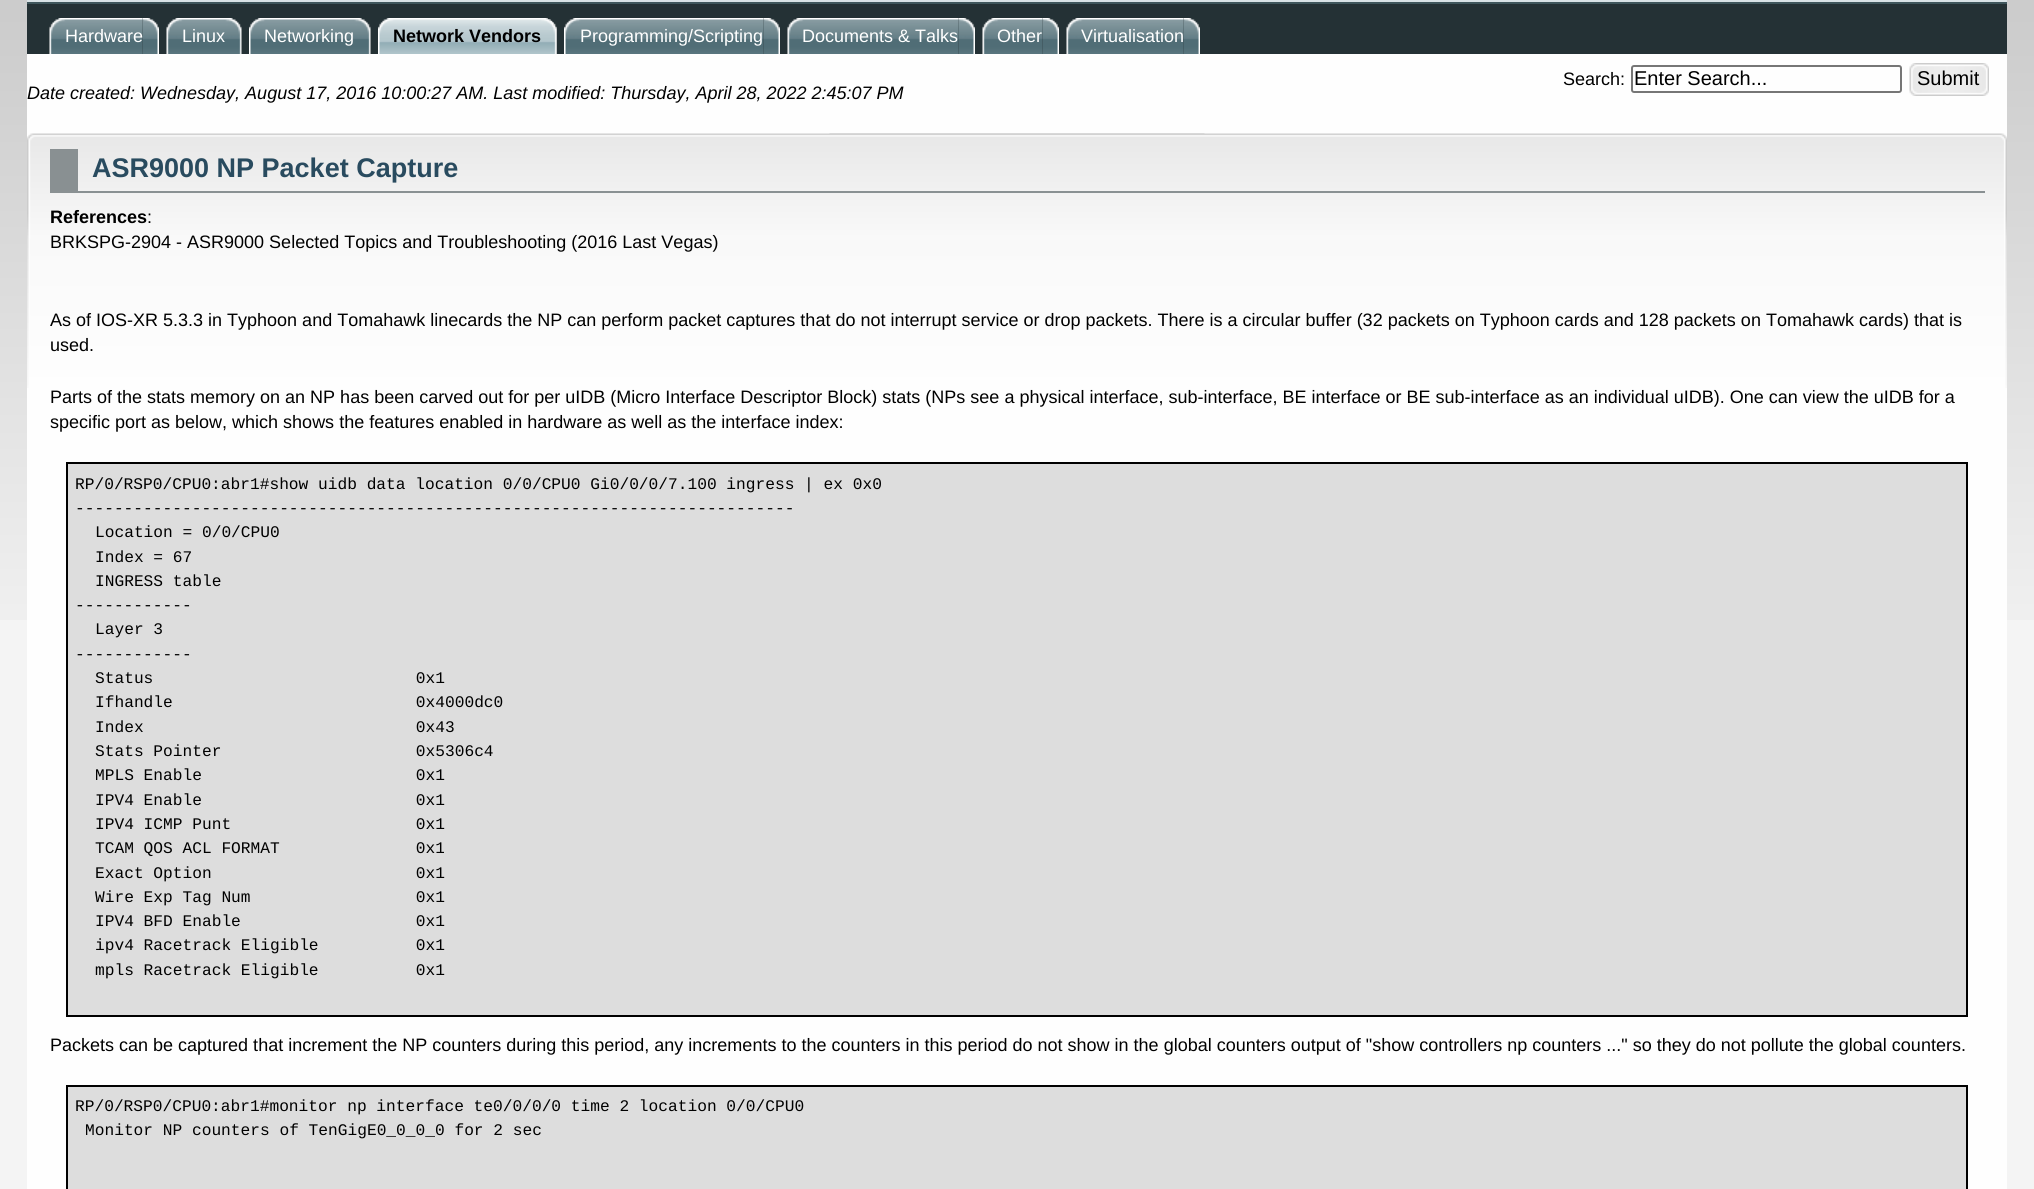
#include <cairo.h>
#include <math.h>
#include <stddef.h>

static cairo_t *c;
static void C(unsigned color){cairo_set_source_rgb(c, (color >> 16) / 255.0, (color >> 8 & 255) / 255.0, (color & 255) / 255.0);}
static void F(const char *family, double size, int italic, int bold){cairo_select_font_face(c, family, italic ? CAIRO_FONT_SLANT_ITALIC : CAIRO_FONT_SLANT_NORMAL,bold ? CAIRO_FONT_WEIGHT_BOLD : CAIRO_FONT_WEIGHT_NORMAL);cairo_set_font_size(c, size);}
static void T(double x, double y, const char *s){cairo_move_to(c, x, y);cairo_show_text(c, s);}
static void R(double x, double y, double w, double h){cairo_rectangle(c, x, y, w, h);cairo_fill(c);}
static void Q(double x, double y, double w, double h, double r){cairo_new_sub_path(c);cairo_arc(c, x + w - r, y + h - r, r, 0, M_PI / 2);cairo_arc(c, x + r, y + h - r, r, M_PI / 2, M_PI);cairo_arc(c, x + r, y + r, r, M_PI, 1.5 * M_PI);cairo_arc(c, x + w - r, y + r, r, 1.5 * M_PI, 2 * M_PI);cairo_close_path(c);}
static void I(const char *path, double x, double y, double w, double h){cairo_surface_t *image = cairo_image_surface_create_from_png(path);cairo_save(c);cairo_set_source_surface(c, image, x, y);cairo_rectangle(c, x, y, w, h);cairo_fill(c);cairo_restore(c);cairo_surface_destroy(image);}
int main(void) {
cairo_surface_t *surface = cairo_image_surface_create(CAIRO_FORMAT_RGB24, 2034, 1189);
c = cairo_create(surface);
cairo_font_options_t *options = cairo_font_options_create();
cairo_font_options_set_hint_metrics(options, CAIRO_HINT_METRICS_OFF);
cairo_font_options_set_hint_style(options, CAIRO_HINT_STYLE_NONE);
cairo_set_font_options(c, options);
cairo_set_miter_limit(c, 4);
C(0xf4f4f4);
cairo_paint(c);
I("1.png",0,0,2034,620);
C(0xfefefe);
R(27,54,1980,1135);
C(0xd9e2e6);
R(27,0,1980,2);
C(0x243135);
R(27,4,1980,50);
C(0x3f565c);
R(27,2,1980,2);
I("2.png",142,18,17,36);
I("3.png",49,18,94,36);
F("Liberation Sans",18,0,0);
C(0xffffff);
T(65,42,"Hardware");
I("4.png",225,18,17,36);
I("5.png",166,18,59,36);
T(182,42,"Linux");
I("6.png",354,18,17,36);
I("7.png",249,18,105,36);
T(264,42,"Networking");
I("8.png",547,18,10,36);
I("9.png",540,18,17,36);
I("10.png",378,18,162,36);
F("Liberation Sans",18,0,1);
C(0x000000);
T(393,42,"Network Vendors");
I("2.png",763,18,17,36);
I("11.png",564,18,200,36);
F("Liberation Sans",18,0,0);
C(0xffffff);
T(580,42,"Programming/Scripting");
I("2.png",958,18,17,36);
I("12.png",787,18,172,36);
T(802,42,"Documents & Talks");
I("13.png",1042,18,17,36);
I("14.png",982,18,61,36);
T(997,42,"Other");
I("13.png",1183,18,17,36);
I("15.png",1066,18,118,36);
T(1081,42,"Virtualisation");
C(0x000000);
T(1563,85,"Search:");
Q(1632,66,269,26,2);
C(0x767676);
cairo_stroke(c);
F("Liberation Sans",20,0,0);
C(0x000000);
T(1634,85,"Enter Search...");
I("16.png",1909,63,80,33);
T(1917,85,"Submit");
F("Liberation Sans",18,1,0);
T(27,99,"Date created: Wednesday, August 17, 2016 10:00:27 AM. Last modified: Thursday, April 28, 2022 2:45:07 PM");
I("17.png",829,133,1178,255);
I("18.png",27,133,1178,255);
C(0x899092);
R(50,191,1935,2);
R(50,149,28,42);
F("Liberation Sans",27,0,1);
C(0x294b5f);
T(92,177,"ASR9000 NP Packet Capture");
F("Liberation Sans",18,0,1);
C(0x000000);
T(50,223,"References");
F("Liberation Sans",18,0,0);
T(147,223,":");
T(50,248,"BRKSPG-2904 - ASR9000 Selected Topics and Troubleshooting (2016 Last Vegas)");
T(50,326,"As of IOS-XR 5.3.3 in Typhoon and Tomahawk linecards the NP can perform packet captures that do not interrupt service or drop packets. There is a circular buffer (32 packets on Typhoon cards and 128 packets on Tomahawk cards) that is");
T(50,351,"used.");
T(50,403,"Parts of the stats memory on an NP has been carved out for per uIDB (Micro Interface Descriptor Block) stats (NPs see a physical interface, sub-interface, BE interface or BE sub-interface as an individual uIDB). One can view the uIDB for a");
T(50,428,"specific port as below, which shows the features enabled in hardware as well as the interface index:");
C(0xdddddd);
cairo_rectangle(c,67,463,1900,553);
cairo_fill_preserve(c);
C(0x000000);
cairo_stroke(c);
F("Liberation Mono",16.2,0,0);
T(75,489,"RP/0/RSP0/CPU0:abr1#show uidb data location 0/0/CPU0 Gi0/0/0/7.100 ingress | ex 0x0");
T(75,513,"--------------------------------------------------------------------------");
T(95,537,"Location = 0/0/CPU0");
T(95,562,"Index = 67");
T(95,586,"INGRESS table");
T(75,610,"------------");
T(95,634,"Layer 3");
T(75,659,"------------");
T(95,683,"Status                           0x1");
T(95,707,"Ifhandle                         0x4000dc0");
T(95,732,"Index                            0x43");
T(95,756,"Stats Pointer                    0x5306c4");
T(95,780,"MPLS Enable                      0x1");
T(95,805,"IPV4 Enable                      0x1");
T(95,829,"IPV4 ICMP Punt                   0x1");
T(95,853,"TCAM QOS ACL FORMAT              0x1");
T(95,878,"Exact Option                     0x1");
T(95,902,"Wire Exp Tag Num                 0x1");
T(95,926,"IPV4 BFD Enable                  0x1");
T(95,950,"ipv4 Racetrack Eligible          0x1");
T(95,975,"mpls Racetrack Eligible          0x1");
F("Liberation Sans",18,0,0);
T(50,1051,"Packets can be captured that increment the NP counters during this period, any increments to the counters in this period do not show in the global counters output of \"show controllers np counters ...\" so they do not pollute the global counters.");
C(0xdddddd);
cairo_rectangle(c,67,1086,1900,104);
cairo_fill_preserve(c);
C(0x000000);
cairo_stroke(c);
F("Liberation Mono",16.2,0,0);
T(75,1111,"RP/0/RSP0/CPU0:abr1#monitor np interface te0/0/0/0 time 2 location 0/0/CPU0");
T(85,1135,"Monitor NP counters of TenGigE0_0_0_0 for 2 sec");
cairo_surface_write_to_png(surface, "o.png");
cairo_font_options_destroy(options);
cairo_destroy(c);
cairo_surface_destroy(surface);
return 0;
}
